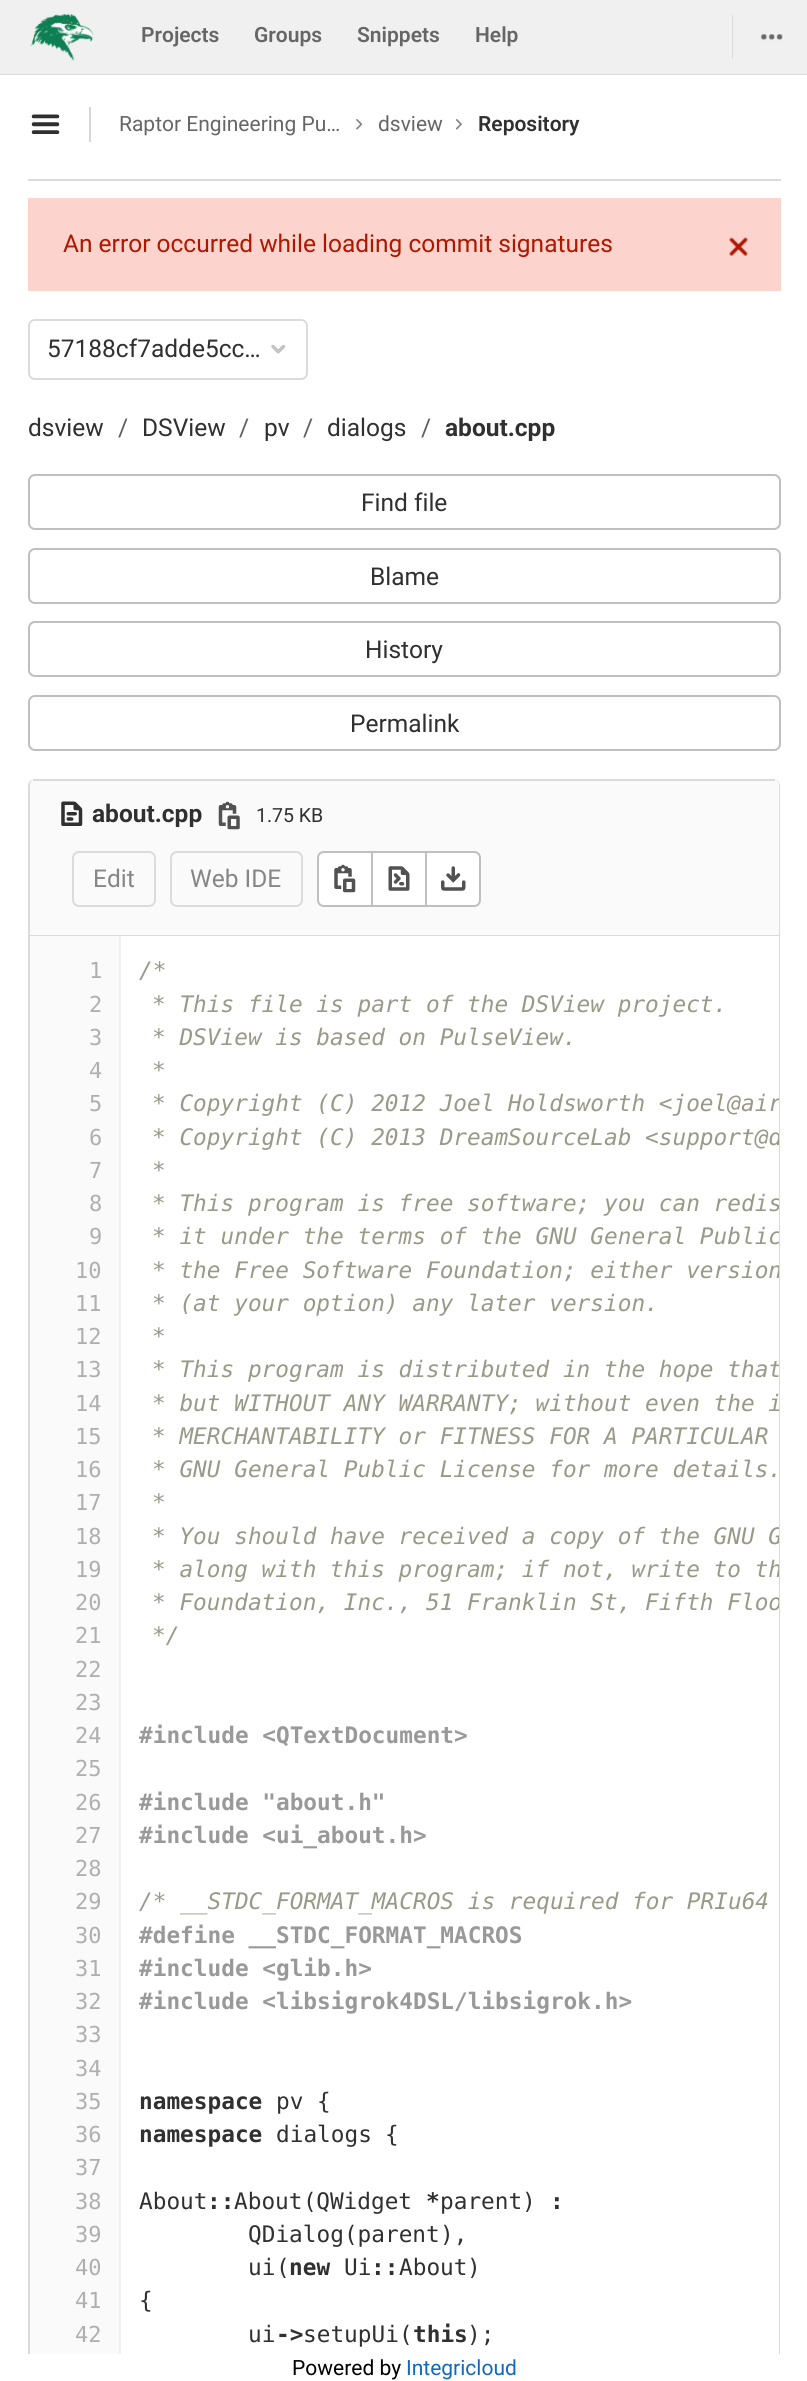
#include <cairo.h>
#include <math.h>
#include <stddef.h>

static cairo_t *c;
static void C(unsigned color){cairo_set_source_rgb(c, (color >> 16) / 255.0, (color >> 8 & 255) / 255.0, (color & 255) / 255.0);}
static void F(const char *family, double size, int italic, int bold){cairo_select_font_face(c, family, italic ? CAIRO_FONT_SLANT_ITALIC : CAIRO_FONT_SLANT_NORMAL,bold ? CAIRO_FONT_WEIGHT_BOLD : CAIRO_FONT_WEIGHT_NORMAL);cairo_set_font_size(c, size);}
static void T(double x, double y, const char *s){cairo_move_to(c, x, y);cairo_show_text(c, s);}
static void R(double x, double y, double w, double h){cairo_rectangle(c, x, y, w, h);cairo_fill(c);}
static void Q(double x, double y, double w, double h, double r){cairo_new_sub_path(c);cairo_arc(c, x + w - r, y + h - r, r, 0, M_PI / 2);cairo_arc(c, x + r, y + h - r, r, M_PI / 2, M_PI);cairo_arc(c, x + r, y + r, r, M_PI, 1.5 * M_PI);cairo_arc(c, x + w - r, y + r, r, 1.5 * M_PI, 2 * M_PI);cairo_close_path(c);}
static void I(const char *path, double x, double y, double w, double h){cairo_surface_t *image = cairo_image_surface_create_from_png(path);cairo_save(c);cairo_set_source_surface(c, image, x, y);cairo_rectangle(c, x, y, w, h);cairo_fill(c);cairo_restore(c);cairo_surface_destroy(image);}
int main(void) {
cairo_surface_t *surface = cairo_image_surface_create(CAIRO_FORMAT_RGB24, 807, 2381);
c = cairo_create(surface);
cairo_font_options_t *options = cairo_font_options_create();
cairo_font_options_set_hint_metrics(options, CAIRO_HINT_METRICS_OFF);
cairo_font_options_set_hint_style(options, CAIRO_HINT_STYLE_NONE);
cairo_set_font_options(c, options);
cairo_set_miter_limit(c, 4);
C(0xffffff);
cairo_paint(c);
C(0xdbdbdb);
cairo_new_path(c);
cairo_move_to(c,0,74);
cairo_line_to(c,0,75);
cairo_line_to(c,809,75);
cairo_line_to(c,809,2);
cairo_line_to(c,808,2);
cairo_line_to(c,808,74);
cairo_close_path(c);
cairo_fill(c);
C(0xf0f0f0);
R(0,0,807,74);
I("1.png",30,14,64,47);
F("Roboto SemiBold",21,0,0);
C(0x666666);
T(141,42,"Projects");
T(254,42,"Groups");
T(357,42,"Snippets");
T(475,42,"Help");
C(0xdbdbdb);
cairo_new_path(c);
cairo_move_to(c,732,60);
cairo_line_to(c,732,14);
cairo_line_to(c,733,16);
cairo_line_to(c,733,58);
cairo_close_path(c);
cairo_fill(c);
I("2.png",761,34,22,7);
R(28,179,753,2);
I("3.png",31,114,29,20);
C(0xd6d6d6);
R(89,107,2,35);
F("Roboto",21,0,0);
C(0x666666);
T(119,131,"Raptor Engineering Pu…");
I("4.png",356,119,7,11);
T(378,131,"dsview");
I("5.png",455,119,7,11);
F("Roboto SemiBold",21,0,0);
C(0x303030);
T(478,131,"Repository");
C(0xfdd4cd);
R(28,198,753,93);
F("Roboto",24.5,0,0);
C(0xae1800);
T(63,252,"An error occurred while loading commit signatures");
I("6.png",729,237,19,19);
Q(29,320,278,59,6);
C(0xdbdbdb);
cairo_stroke(c);
C(0x303030);
T(47,357,"57188cf7adde5cc…");
I("7.png",271,344,15,10);
T(28,436,"dsview");
C(0x5e5e5e);
T(118,436,"/");
C(0x303030);
T(142,436,"DSView");
C(0x5e5e5e);
T(239,436,"/");
C(0x303030);
T(264,436,"pv");
C(0x5e5e5e);
T(303,436,"/");
C(0x303030);
T(327,436,"dialogs");
C(0x5e5e5e);
T(421,436,"/");
F("Roboto",24.5,0,1);
C(0x303030);
T(445,436,"about.cpp");
Q(29,475,751,54,6);
C(0xbfbfbf);
cairo_stroke(c);
F("Roboto",24.5,0,0);
C(0x303030);
T(361,511,"Find file");
Q(29,549,751,54,6);
C(0xbfbfbf);
cairo_stroke(c);
C(0x303030);
T(370,585,"Blame");
Q(29,622,751,54,6);
C(0xbfbfbf);
cairo_stroke(c);
C(0x303030);
T(365,658,"History");
Q(29,696,751,54,6);
C(0xbfbfbf);
cairo_stroke(c);
C(0x303030);
T(350,732,"Permalink");
C(0xdbdbdb);
cairo_set_fill_rule(c,CAIRO_FILL_RULE_EVEN_ODD);
cairo_new_path(c);
cairo_move_to(c,35,779);
cairo_line_to(c,774,779);
cairo_curve_to(c,777,779,780,782,780,786);
cairo_line_to(c,780,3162);
cairo_curve_to(c,780,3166,777,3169,774,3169);
cairo_line_to(c,35,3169);
cairo_curve_to(c,31,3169,28,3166,28,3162);
cairo_line_to(c,28,786);
cairo_curve_to(c,28,782,31,779,35,779);
cairo_close_path(c);
cairo_move_to(c,35,779);
cairo_line_to(c,774,779);
cairo_curve_to(c,776,779,779,782,779,786);
cairo_line_to(c,779,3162);
cairo_curve_to(c,779,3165,776,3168,774,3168);
cairo_line_to(c,35,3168);
cairo_curve_to(c,32,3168,30,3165,30,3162);
cairo_line_to(c,30,786);
cairo_curve_to(c,30,782,32,779,35,779);
cairo_close_path(c);
cairo_fill(c);
C(0xfafafa);
cairo_new_path(c);
cairo_move_to(c,37,779);
cairo_line_to(c,772,779);
cairo_curve_to(c,776,779,779,782,779,786);
cairo_line_to(c,779,936);
cairo_line_to(c,30,936);
cairo_line_to(c,30,786);
cairo_curve_to(c,30,782,33,779,37,779);
cairo_close_path(c);
cairo_fill(c);
C(0xdbdbdb);
R(33,779,742,2);
R(30,935,749,1);
I("8.png",61,801,22,25);
F("Roboto",24.5,0,1);
C(0x303030);
T(92,822,"about.cpp");
I("9.png",218,801,22,29);
F("Roboto",19.5,0,0);
T(256,822,"1.75 KB");
Q(73,852,82,54,6);
C(0xdbdbdb);
cairo_stroke(c);
F("Roboto",24.5,0,0);
C(0x868686);
T(93,887,"Edit");
Q(171,852,131,54,6);
C(0xdbdbdb);
cairo_stroke(c);
C(0x868686);
T(190,887,"Web IDE");
C(0xffffff);
cairo_new_path(c);
cairo_move_to(c,324,852);
cairo_line_to(c,372,852);
cairo_line_to(c,372,906);
cairo_line_to(c,324,906);
cairo_curve_to(c,320.5,906,318,903.5,318,900);
cairo_line_to(c,318,858);
cairo_curve_to(c,318,854.5,320.5,852,324,852);
cairo_close_path(c);
cairo_fill_preserve(c);
C(0xbfbfbf);
cairo_stroke(c);
I("10.png",334,864,22,29);
C(0xffffff);
cairo_rectangle(c,372,852,54,54);
cairo_fill_preserve(c);
C(0xbfbfbf);
cairo_stroke(c);
I("11.png",388,866,22,25);
C(0xffffff);
cairo_new_path(c);
cairo_move_to(c,426,852);
cairo_line_to(c,474,852);
cairo_curve_to(c,477.5,852,480,854.5,480,858);
cairo_line_to(c,480,900);
cairo_curve_to(c,480,903.5,477.5,906,474,906);
cairo_line_to(c,426,906);
cairo_close_path(c);
cairo_fill_preserve(c);
C(0xbfbfbf);
cairo_stroke(c);
I("12.png",441,866,25,25);
C(0xfafafa);
R(30,936,89,1418);
F("DejaVu Sans Mono",22,0,0);
C(0xafafaf);
T(89,978,"1");
T(89,1012,"2");
T(89,1045,"3");
T(89,1078,"4");
T(89,1111,"5");
T(89,1145,"6");
T(89,1178,"7");
T(89,1211,"8");
T(89,1244,"9");
T(75,1278,"10");
T(75,1311,"11");
T(75,1344,"12");
T(75,1377,"13");
T(75,1411,"14");
T(75,1444,"15");
T(75,1477,"16");
T(75,1510,"17");
T(75,1544,"18");
T(75,1577,"19");
T(75,1610,"20");
T(75,1643,"21");
T(75,1677,"22");
T(75,1710,"23");
T(75,1743,"24");
T(75,1776,"25");
T(75,1810,"26");
T(75,1843,"27");
T(75,1876,"28");
T(75,1909,"29");
T(75,1943,"30");
T(75,1976,"31");
T(75,2009,"32");
T(75,2042,"33");
T(75,2076,"34");
T(75,2109,"35");
T(75,2142,"36");
T(75,2175,"37");
T(75,2209,"38");
T(75,2242,"39");
T(75,2275,"40");
T(75,2308,"41");
T(75,2342,"42");
C(0xf0f0f0);
R(119,936,2,1418);
F("DejaVu Sans Mono",22.75,1,0);
C(0x999988);
T(139,978,"/*");
T(152,1012,"* This file is part of the DSView project.");
T(152,1045,"* DSView is based on PulseView.");
T(152,1078,"*");
cairo_save(c);
cairo_set_fill_rule(c,CAIRO_FILL_RULE_WINDING);
cairo_new_path(c);
cairo_move_to(c,121,936);
cairo_line_to(c,779,936);
cairo_line_to(c,779,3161);
cairo_curve_to(c,779,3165,776,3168,772,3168);
cairo_line_to(c,121,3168);
cairo_close_path(c);
cairo_clip(c);
T(152,1111,"* Copyright (C) 2012 Joel Holdsworth <joel@air");
T(152,1145,"* Copyright (C) 2013 DreamSourceLab <support@d");
cairo_restore(c);
T(152,1178,"*");
cairo_save(c);
cairo_set_fill_rule(c,CAIRO_FILL_RULE_WINDING);
cairo_new_path(c);
cairo_move_to(c,121,936);
cairo_line_to(c,779,936);
cairo_line_to(c,779,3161);
cairo_curve_to(c,779,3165,776,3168,772,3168);
cairo_line_to(c,121,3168);
cairo_close_path(c);
cairo_clip(c);
T(152,1211,"* This program is free software; you can redis");
T(152,1244,"* it under the terms of the GNU General Public");
T(152,1278,"* the Free Software Foundation; either version");
cairo_restore(c);
T(152,1311,"* (at your option) any later version.");
T(152,1344,"*");
cairo_save(c);
cairo_set_fill_rule(c,CAIRO_FILL_RULE_WINDING);
cairo_new_path(c);
cairo_move_to(c,121,936);
cairo_line_to(c,779,936);
cairo_line_to(c,779,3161);
cairo_curve_to(c,779,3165,776,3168,772,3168);
cairo_line_to(c,121,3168);
cairo_close_path(c);
cairo_clip(c);
T(152,1377,"* This program is distributed in the hope that");
cairo_restore(c);
T(152,1411,"* but WITHOUT ANY WARRANTY; without even the i");
T(152,1444,"* MERCHANTABILITY or FITNESS FOR A PARTICULAR");
T(152,1477,"* GNU General Public License for more details.");
T(152,1510,"*");
cairo_save(c);
cairo_set_fill_rule(c,CAIRO_FILL_RULE_WINDING);
cairo_new_path(c);
cairo_move_to(c,121,936);
cairo_line_to(c,779,936);
cairo_line_to(c,779,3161);
cairo_curve_to(c,779,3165,776,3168,772,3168);
cairo_line_to(c,121,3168);
cairo_close_path(c);
cairo_clip(c);
T(152,1544,"* You should have received a copy of the GNU G");
T(152,1577,"* along with this program; if not, write to th");
T(152,1610,"* Foundation, Inc., 51 Franklin St, Fifth Floo");
cairo_restore(c);
T(152,1643,"*/");
F("DejaVu Sans Mono",22.75,0,1);
C(0x999999);
T(139,1743,"#include <QTextDocument>");
T(139,1810,"#include \"about.h\"");
T(139,1843,"#include <ui_about.h>");
F("DejaVu Sans Mono",22.75,1,0);
C(0x999988);
T(139,1909,"/* __STDC_FORMAT_MACROS is required for PRIu64");
F("DejaVu Sans Mono",22.75,0,1);
C(0x999999);
T(139,1943,"#define __STDC_FORMAT_MACROS");
T(139,1976,"#include <glib.h>");
T(139,2009,"#include <libsigrok4DSL/libsigrok.h>");
C(0x303030);
T(139,2109,"namespace");
F("DejaVu Sans Mono",22.75,0,0);
T(276,2109,"pv");
T(317,2109,"{");
F("DejaVu Sans Mono",22.75,0,1);
T(139,2142,"namespace");
F("DejaVu Sans Mono",22.75,0,0);
T(276,2142,"dialogs");
T(385,2142,"{");
T(139,2209,"About");
T(234,2209,"About QWidget");
F("DejaVu Sans Mono",22.75,0,1);
T(207,2209,"::");
F("DejaVu Sans Mono",22.75,0,0);
T(303,2209,"(");
F("DejaVu Sans Mono",22.75,0,1);
T(426,2209,"*");
F("DejaVu Sans Mono",22.75,0,0);
T(440,2209,"parent");
T(522,2209,")");
F("DejaVu Sans Mono",22.75,0,1);
T(550,2209,":");
F("DejaVu Sans Mono",22.75,0,0);
T(248,2242,"QDialog parent");
T(344,2242,"(");
T(440,2242,"),");
T(248,2275,"ui");
T(276,2275,"(");
F("DejaVu Sans Mono",22.75,0,1);
T(289,2275,"new");
F("DejaVu Sans Mono",22.75,0,0);
T(344,2275,"Ui");
F("DejaVu Sans Mono",22.75,0,1);
T(371,2275,"::");
F("DejaVu Sans Mono",22.75,0,0);
T(399,2275,"About");
T(467,2275,")");
T(139,2308,"{");
T(248,2342,"ui");
F("DejaVu Sans Mono",22.75,0,1);
T(276,2342,"->");
F("DejaVu Sans Mono",22.75,0,0);
T(303,2342,"setupUi");
T(399,2342,"(");
F("DejaVu Sans Mono",22.75,0,1);
T(413,2342,"this");
F("DejaVu Sans Mono",22.75,0,0);
T(467,2342,");");
C(0xffffff);
R(28,2354,752,27);
F("Roboto",21,0,0);
C(0x000000);
T(292,2375,"Powered by");
C(0x1068bf);
T(406,2375,"Integricloud");
cairo_surface_write_to_png(surface, "o.png");
cairo_font_options_destroy(options);
cairo_destroy(c);
cairo_surface_destroy(surface);
return 0;
}
